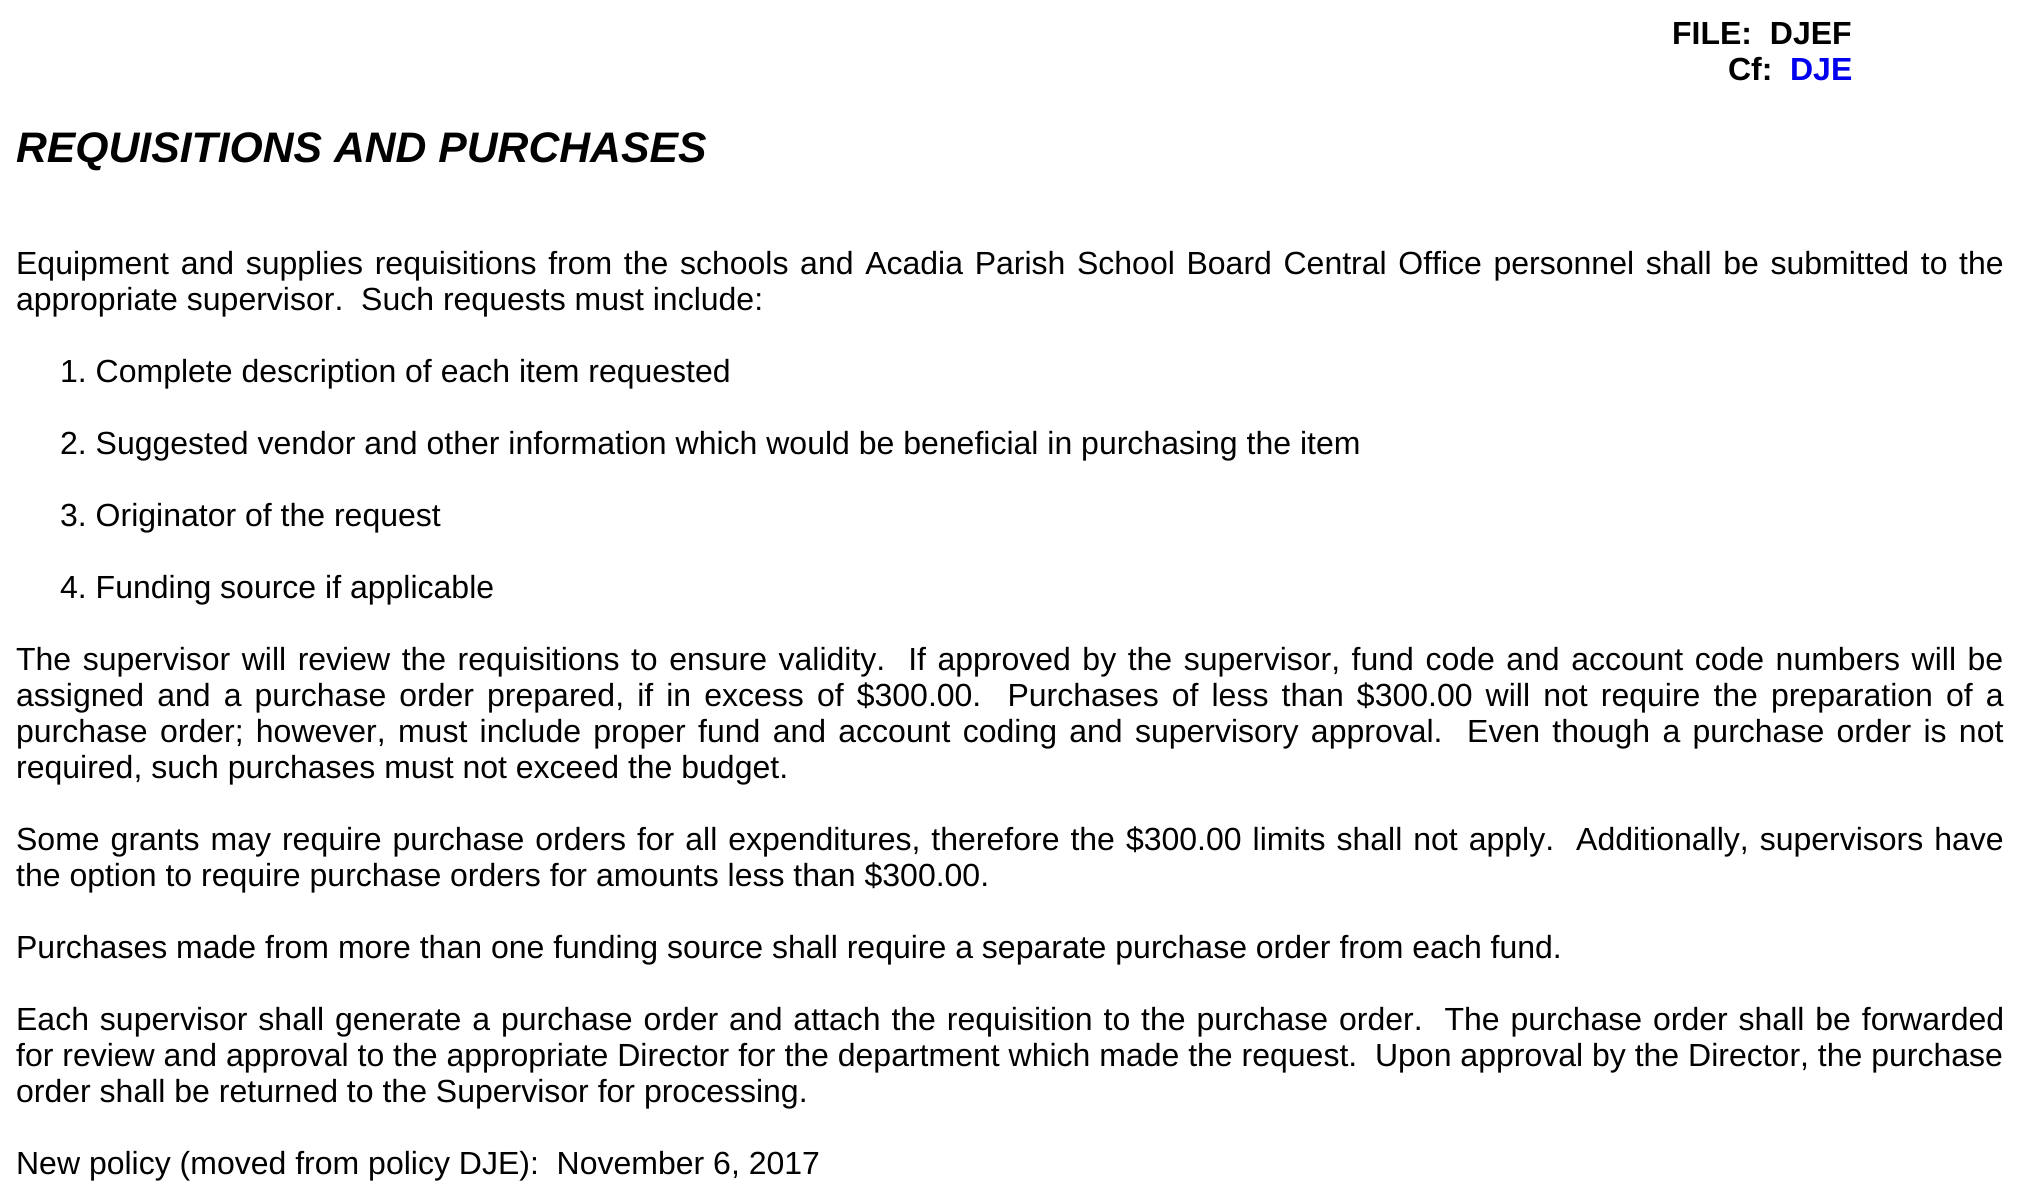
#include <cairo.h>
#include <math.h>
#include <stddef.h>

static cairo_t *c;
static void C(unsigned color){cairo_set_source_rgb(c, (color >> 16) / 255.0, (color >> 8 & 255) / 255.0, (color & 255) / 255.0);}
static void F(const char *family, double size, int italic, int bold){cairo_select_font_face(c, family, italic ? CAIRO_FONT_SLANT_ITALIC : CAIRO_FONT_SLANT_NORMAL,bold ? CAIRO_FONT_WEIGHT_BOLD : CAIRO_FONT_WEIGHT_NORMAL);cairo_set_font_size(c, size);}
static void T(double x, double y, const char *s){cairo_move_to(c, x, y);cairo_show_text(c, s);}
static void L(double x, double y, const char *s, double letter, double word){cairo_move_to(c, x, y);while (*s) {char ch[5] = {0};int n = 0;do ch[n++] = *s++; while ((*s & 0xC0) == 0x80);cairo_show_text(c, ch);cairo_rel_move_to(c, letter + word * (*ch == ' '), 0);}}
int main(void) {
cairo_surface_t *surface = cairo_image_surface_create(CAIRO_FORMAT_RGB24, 2039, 1203);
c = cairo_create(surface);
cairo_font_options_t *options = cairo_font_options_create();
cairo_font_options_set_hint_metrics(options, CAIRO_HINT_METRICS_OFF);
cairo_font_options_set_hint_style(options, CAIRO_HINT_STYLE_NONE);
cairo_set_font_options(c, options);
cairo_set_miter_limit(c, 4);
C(0xffffff);
cairo_paint(c);
F("Liberation Sans",32,0,1);
C(0x000000);
T(1672,44,"FILE:  DJEF");
T(1728,80,"Cf:");
C(0x0000ee);
T(1790,80,"DJE");
F("Liberation Sans",42.7,1,1);
C(0x000000);
T(16,162,"REQUISITIONS AND PURCHASES");
F("Liberation Sans",32,0,0);
L(16,274,"Equipment and supplies requisitions from the schools and Acadia Parish School Board Central Office personnel shall be submitted to the",0,2.75);
T(16,310,"appropriate supervisor.  Such requests must include:");
T(60,382,"1. Complete description of each item requested");
T(60,454,"2. Suggested vendor and other information which would be beneficial in purchasing the item");
T(60,526,"3. Originator of the request");
T(60,598,"4. Funding source if applicable");
L(16,670,"The supervisor will review the requisitions to ensure validity.  If approved by the supervisor, fund code and account code numbers will be",0,2.6);
L(16,706,"assigned and a purchase order prepared, if in excess of $300.00.  Purchases of less than $300.00 will not require the preparation of a",0,4.2);
L(16,742,"purchase order; however, must include proper fund and account coding and supervisory approval.  Even though a purchase order is not",0,3.4);
T(16,778,"required, such purchases must not exceed the budget.");
L(16,850,"Some grants may require purchase orders for all expenditures, therefore the $300.00 limits shall not apply.  Additionally, supervisors have",0,2.1);
T(16,886,"the option to require purchase orders for amounts less than $300.00.");
T(16,958,"Purchases made from more than one funding source shall require a separate purchase order from each fund.");
L(16,1030,"Each supervisor shall generate a purchase order and attach the requisition to the purchase order.  The purchase order shall be forwarded",0,2);
T(16,1066,"for review and approval to the appropriate Director for the department which made the request.  Upon approval by the Director, the purchase");
T(16,1102,"order shall be returned to the Supervisor for processing.");
T(16,1174,"New policy (moved from policy DJE):  November 6, 2017");
cairo_surface_write_to_png(surface, "o.png");
cairo_font_options_destroy(options);
cairo_destroy(c);
cairo_surface_destroy(surface);
return 0;
}
